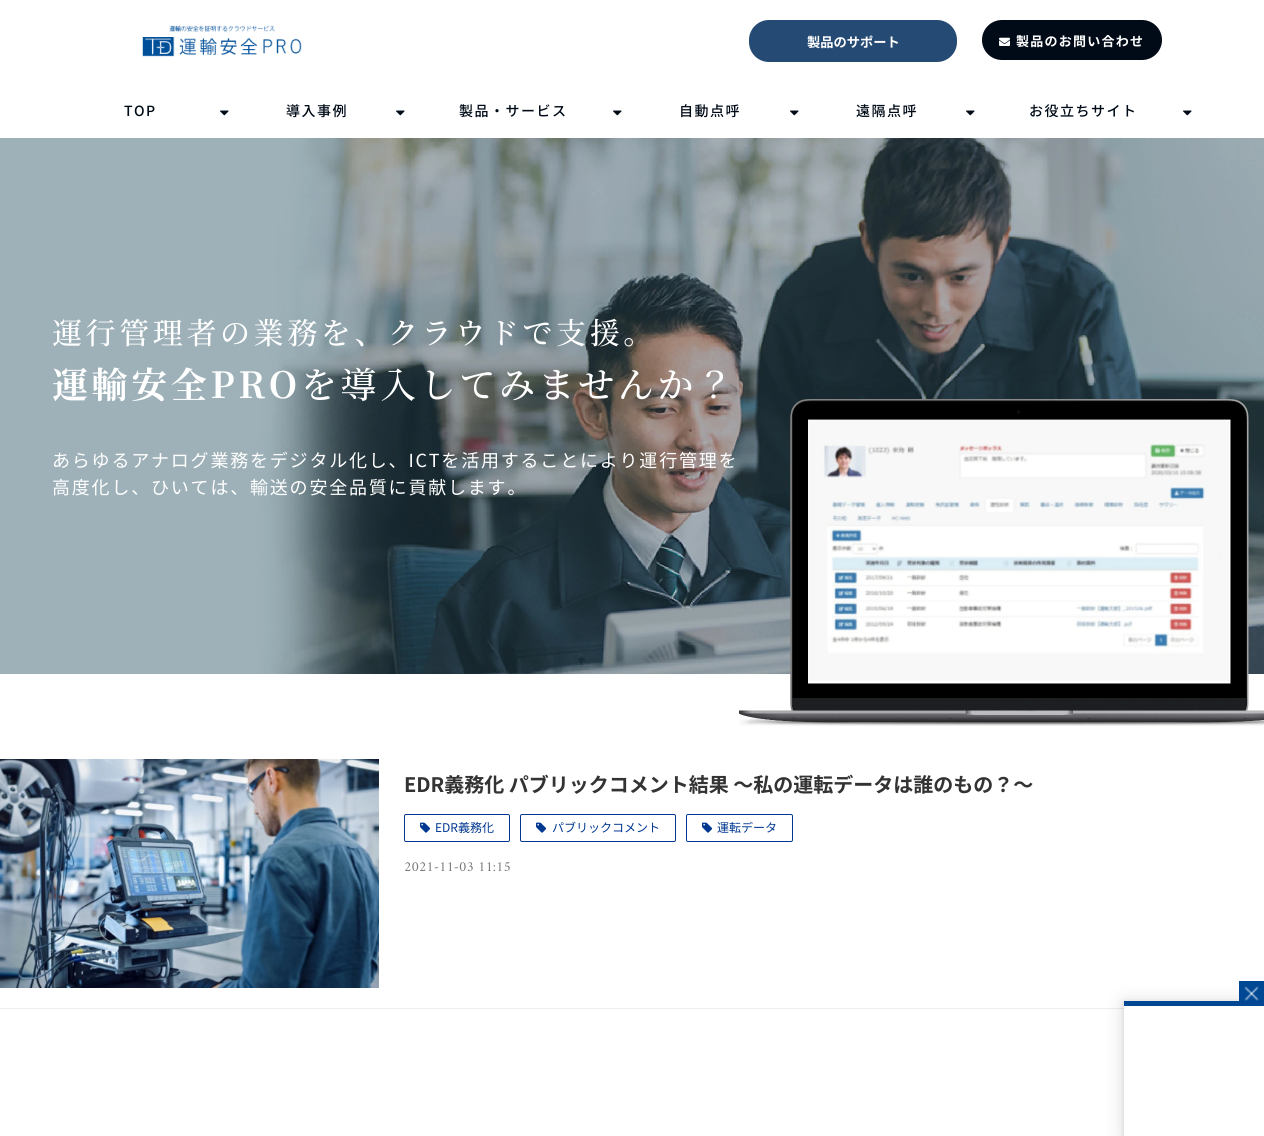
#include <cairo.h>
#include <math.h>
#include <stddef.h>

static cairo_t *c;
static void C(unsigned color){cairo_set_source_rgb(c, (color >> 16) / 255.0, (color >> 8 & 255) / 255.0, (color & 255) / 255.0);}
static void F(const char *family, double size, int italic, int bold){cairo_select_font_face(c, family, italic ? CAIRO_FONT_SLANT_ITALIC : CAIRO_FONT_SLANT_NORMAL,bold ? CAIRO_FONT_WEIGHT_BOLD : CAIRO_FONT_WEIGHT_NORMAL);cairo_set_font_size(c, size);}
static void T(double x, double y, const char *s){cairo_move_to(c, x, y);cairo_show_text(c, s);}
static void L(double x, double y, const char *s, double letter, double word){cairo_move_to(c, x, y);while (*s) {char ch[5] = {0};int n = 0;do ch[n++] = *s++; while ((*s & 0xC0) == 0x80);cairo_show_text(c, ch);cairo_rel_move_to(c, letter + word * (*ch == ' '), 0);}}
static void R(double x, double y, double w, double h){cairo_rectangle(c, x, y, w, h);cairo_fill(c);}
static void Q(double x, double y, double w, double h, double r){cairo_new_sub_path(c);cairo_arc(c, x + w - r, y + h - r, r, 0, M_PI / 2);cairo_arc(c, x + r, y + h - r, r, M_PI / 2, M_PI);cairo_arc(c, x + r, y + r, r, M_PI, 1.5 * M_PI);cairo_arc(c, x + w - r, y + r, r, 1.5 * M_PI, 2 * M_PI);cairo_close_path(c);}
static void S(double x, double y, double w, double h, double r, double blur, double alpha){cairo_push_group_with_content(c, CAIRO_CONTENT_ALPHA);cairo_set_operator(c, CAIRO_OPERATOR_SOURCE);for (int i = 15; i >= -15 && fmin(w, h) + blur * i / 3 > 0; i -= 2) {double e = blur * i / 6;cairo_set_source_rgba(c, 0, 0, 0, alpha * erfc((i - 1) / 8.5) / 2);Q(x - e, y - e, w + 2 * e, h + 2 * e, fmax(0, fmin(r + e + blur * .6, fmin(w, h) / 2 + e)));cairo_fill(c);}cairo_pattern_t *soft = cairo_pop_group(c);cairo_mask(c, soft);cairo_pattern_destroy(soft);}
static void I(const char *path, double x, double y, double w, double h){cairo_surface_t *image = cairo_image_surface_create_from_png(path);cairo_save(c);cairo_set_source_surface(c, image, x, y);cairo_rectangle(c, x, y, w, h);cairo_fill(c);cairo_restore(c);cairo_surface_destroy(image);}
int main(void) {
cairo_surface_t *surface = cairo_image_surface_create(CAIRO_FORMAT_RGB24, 1264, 1136);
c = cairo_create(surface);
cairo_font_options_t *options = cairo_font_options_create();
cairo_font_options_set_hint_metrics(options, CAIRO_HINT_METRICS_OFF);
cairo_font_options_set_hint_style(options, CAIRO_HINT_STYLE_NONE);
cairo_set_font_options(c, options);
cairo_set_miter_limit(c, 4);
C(0xffffff);
cairo_paint(c);
I("1.png",142,25,160,32);
C(0x254a73);
Q(749,20,208,42,20);
cairo_fill(c);
F("Noto Sans JP",13.25,0,1);
C(0xffffff);
T(807,47,"製品のサポート");
C(0x000b17);
Q(982,20,180,40,20);
cairo_fill(c);
I("2.png",999,37,11,9);
F("Noto Sans JP",13,0,1);
C(0xffffff);
L(1016,46,"製品のお問い合わせ",1.25,0);
F("Noto Sans JP Medium",14,0,0);
C(0x000b17);
L(124,116,"TOP",1.5,0);
I("3.png",220,110,9,6);
L(286,116,"導入事例",1.5,0);
I("3.png",396,110,9,6);
L(459,116,"製品・サービス",1.5,0);
I("3.png",613,110,9,6);
L(679,116,"自動点呼",1.5,0);
I("3.png",790,110,9,6);
L(856,116,"遠隔点呼",1.5,0);
I("3.png",966,110,9,6);
L(1029,116,"お役立ちサイト",1.5,0);
I("3.png",1183,110,9,6);
I("4.png",0,138,1264,536);
F("Noto Serif JP Medium",30,0,0);
C(0xffffff);
L(52,344,"運行管理者の業務を、クラウドで支援。",3.6,0);
F("Noto Serif JP",36,0,1);
L(52,398,"運輸安全PRO",3.6,0);
F("Noto Serif JP Medium",36,0,0);
L(301,398,"を導入してみませんか？",3.6,0);
F("Noto Sans JP",18,0,0);
L(52,467,"あらゆるアナログ業務をデジタル化し、ICTを活用することにより運行管理を",1.8,0);
L(52,494,"高度化し、ひいては、輸送の安全品質に貢献します。",1.8,0);
I("5.png",739,399,525,327);
I("6.png",809,420,420,261);
C(0xeeeeee);
R(0,1008,1124,1);
I("7.png",0,759,379,229);
F("Noto Sans JP",20,0,1);
C(0x333333);
T(404,792,"EDR義務化 パブリックコメント結果 ～私の運転データは誰のもの？～");
Q(404.5,814.5,105,27,1.5);
C(0x003791);
cairo_set_line_width(c,1);
cairo_stroke(c);
I("8.png",420,822,11,11);
F("Noto Sans JP",12,0,0);
T(435,832,"EDR義務化");
Q(520.5,814.5,155,27,1.5);
cairo_stroke(c);
I("8.png",536,822,11,11);
T(552,832,"パブリックコメント");
Q(686.5,814.5,106,27,1.5);
cairo_stroke(c);
I("8.png",702,822,11,11);
T(717,832,"運転データ");
F("Amiri",14,0,0);
C(0x777777);
T(404,871,"2021-11-03 11:15");
C(0x000000);
S(1124,1002,140,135,0,2.5,.12);
S(1124,1003,140,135,0,10,.14);
C(0xffffff);
R(1124,1006,140,130);
C(0x004894);
R(1124,1001,115,5);
R(1239,981,25,25);
I("9.png",1244,986,15,15);
cairo_surface_write_to_png(surface, "o.png");
cairo_font_options_destroy(options);
cairo_destroy(c);
cairo_surface_destroy(surface);
return 0;
}
